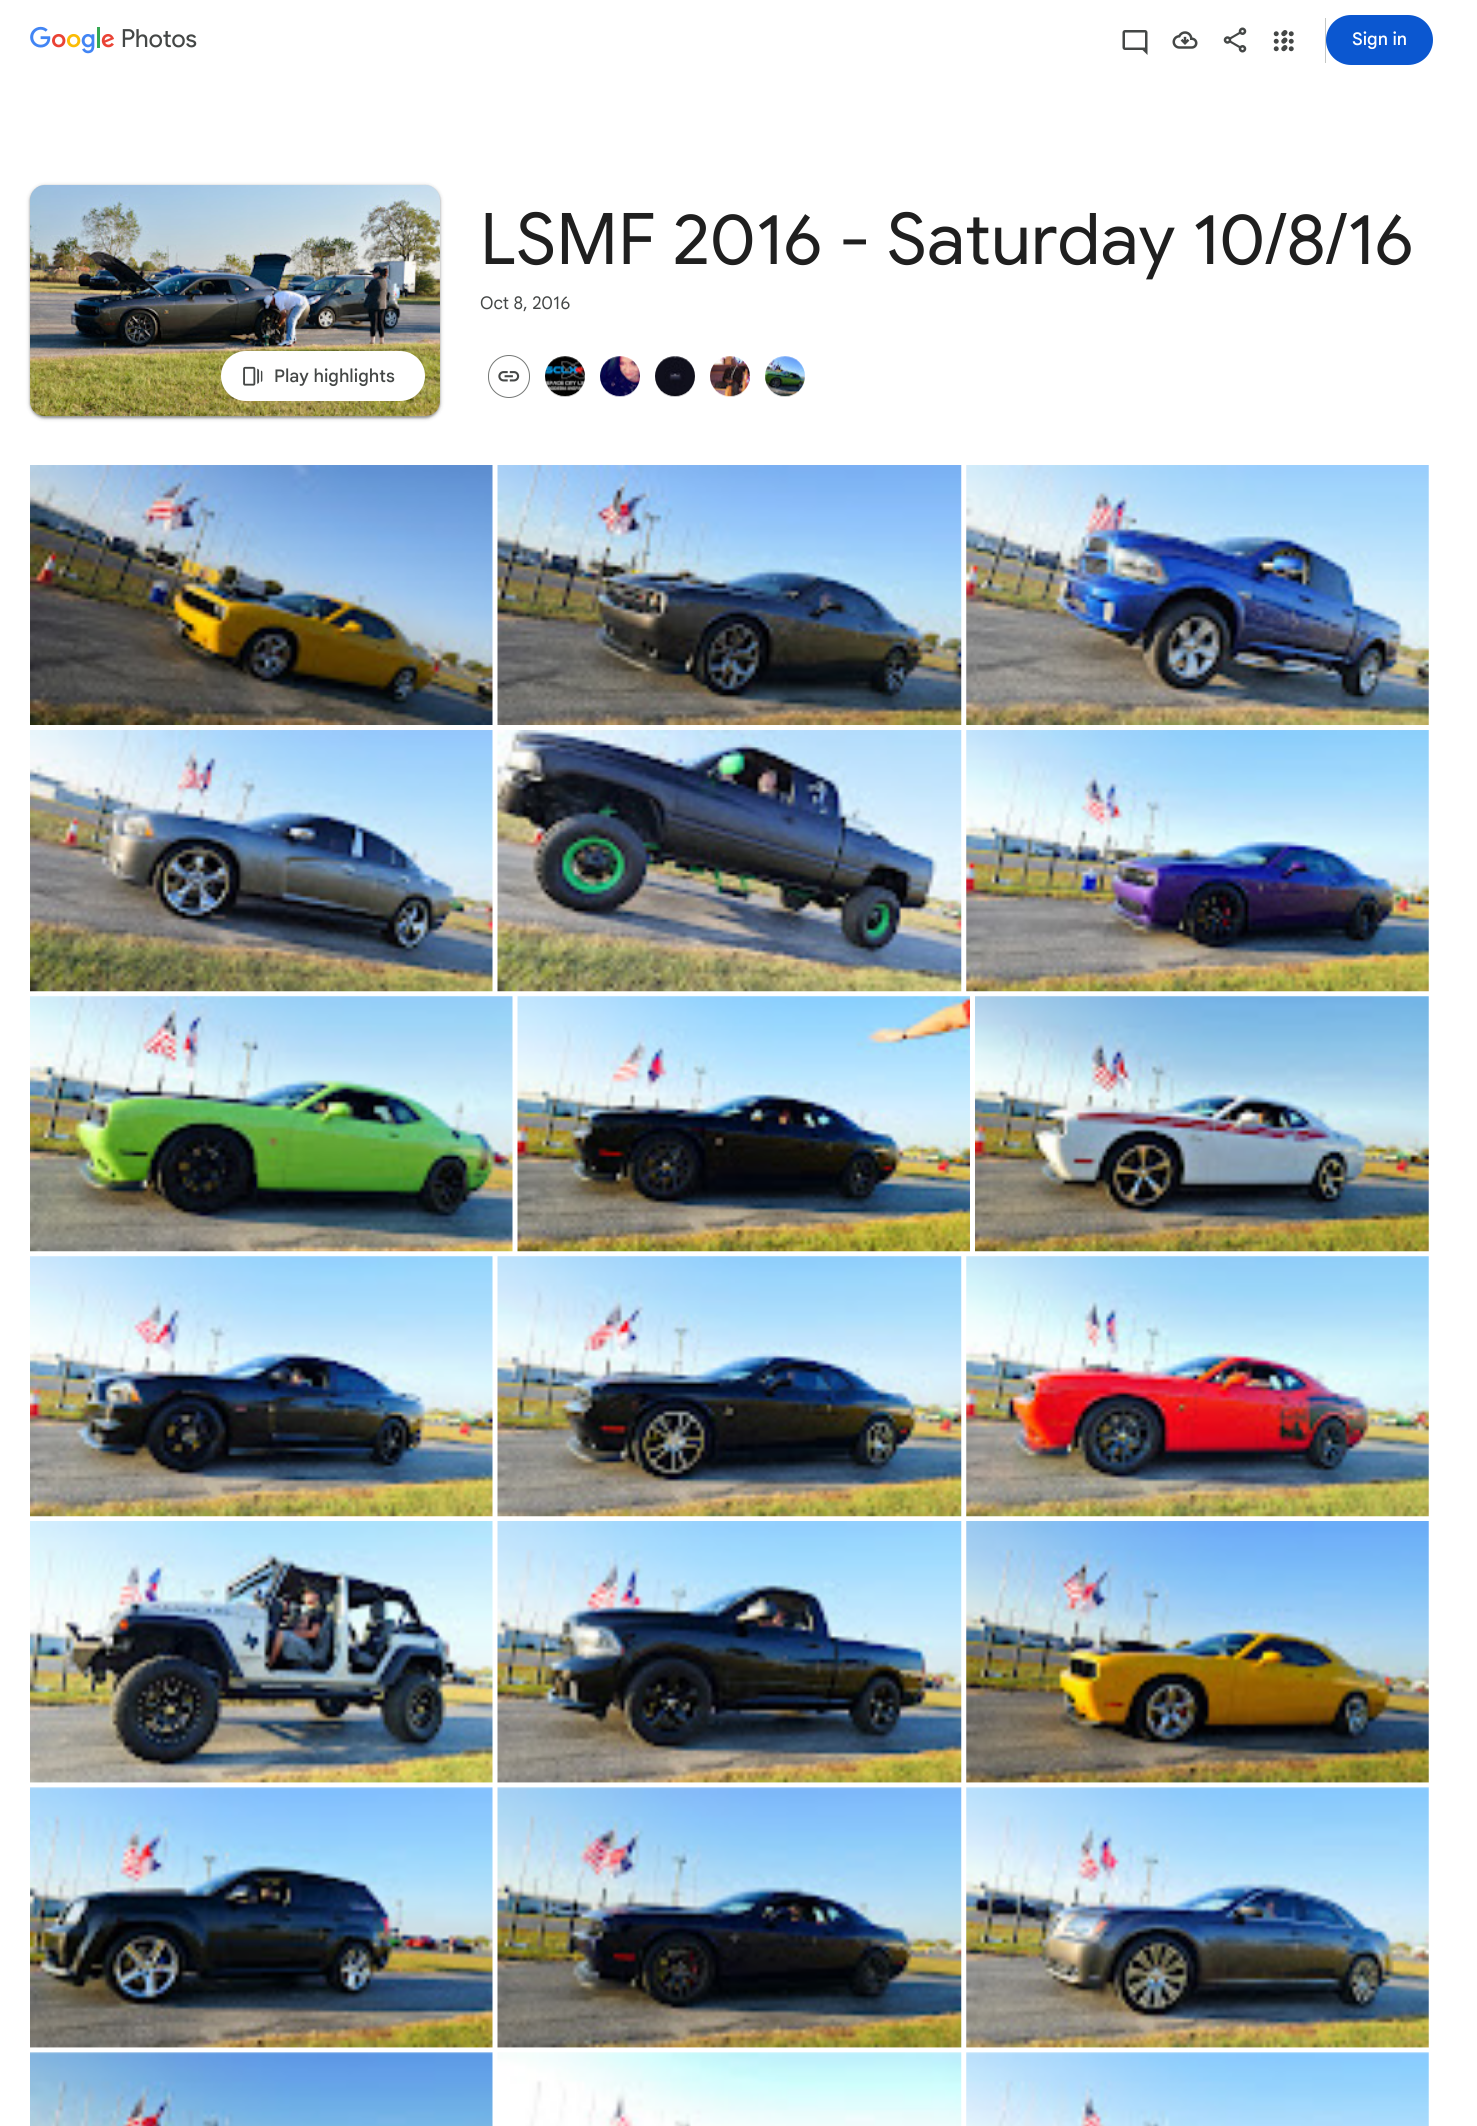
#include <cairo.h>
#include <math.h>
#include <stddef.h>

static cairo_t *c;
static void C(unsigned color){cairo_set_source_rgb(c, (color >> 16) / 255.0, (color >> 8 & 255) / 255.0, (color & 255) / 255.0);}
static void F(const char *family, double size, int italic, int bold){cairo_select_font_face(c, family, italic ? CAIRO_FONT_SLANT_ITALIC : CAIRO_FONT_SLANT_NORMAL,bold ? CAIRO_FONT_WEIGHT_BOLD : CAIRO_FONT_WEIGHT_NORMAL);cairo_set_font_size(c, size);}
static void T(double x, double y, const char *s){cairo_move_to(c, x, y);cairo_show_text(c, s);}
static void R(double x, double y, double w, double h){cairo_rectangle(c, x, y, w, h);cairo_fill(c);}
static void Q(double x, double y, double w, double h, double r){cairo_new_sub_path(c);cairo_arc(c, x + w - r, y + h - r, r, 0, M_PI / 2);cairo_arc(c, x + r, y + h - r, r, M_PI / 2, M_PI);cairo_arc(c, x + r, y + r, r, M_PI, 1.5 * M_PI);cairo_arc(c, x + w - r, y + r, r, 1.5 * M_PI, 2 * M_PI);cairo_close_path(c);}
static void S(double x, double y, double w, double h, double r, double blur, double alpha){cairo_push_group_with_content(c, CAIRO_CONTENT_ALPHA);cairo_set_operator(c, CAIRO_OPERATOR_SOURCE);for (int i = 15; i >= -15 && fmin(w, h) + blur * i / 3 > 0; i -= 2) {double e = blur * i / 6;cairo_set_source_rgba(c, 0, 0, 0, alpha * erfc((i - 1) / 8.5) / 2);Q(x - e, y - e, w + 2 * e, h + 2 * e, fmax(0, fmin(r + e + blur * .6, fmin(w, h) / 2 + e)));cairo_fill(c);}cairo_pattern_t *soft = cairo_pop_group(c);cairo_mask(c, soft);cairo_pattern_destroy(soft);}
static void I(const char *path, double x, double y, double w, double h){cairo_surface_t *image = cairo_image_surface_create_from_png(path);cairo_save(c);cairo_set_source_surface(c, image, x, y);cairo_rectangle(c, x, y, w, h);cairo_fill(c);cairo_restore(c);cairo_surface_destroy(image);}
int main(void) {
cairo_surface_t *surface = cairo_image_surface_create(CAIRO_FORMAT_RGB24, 1477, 2126);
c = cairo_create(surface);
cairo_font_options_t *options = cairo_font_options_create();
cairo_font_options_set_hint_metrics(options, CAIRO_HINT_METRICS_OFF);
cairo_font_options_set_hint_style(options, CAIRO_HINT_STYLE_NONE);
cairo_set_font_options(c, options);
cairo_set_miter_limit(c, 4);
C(0xffffff);
cairo_paint(c);
I("1.png",30,26,84,28);
F("Product Sans",25,0,0);
C(0x444746);
T(121,47,"Photos");
I("2.png",1122,30,26,25);
I("3.png",1172,31,26,18);
I("4.png",1223,27,24,26);
I("5.png",1282,30,6,20);
C(0xc4c7c5);
R(1325,18,1,45);
F("Google Sans",71.25,0,0);
C(0x1f1f1f);
T(480,264,"LSMF 2016 - Saturday 10/8/16");
F("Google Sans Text",17.5,0,0);
C(0x444746);
T(480,309,"Oct 8, 2016");
Q(488.5,355.5,41,42,20.5);
C(0x747775);
cairo_set_line_width(c,1);
cairo_stroke(c);
I("6.png",498,371,22,11);
I("7.png",545,356,40,41);
I("8.png",600,356,40,41);
I("9.png",655,356,40,41);
I("10.png",710,356,40,41);
I("11.png",765,356,40,41);
C(0x000000);
S(29,185,412,234,16,2,.15);
S(30,186,410,232,15,1,.3);
I("12.png",30,185,410,232);
C(0xffffff);
Q(221,351,204,50,25);
cairo_fill(c);
I("13.png",243,366,20,20);
F("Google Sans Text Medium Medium",17.5,0,0);
C(0x444746);
T(274,382,"Play highlights");
I("14.png",30,465,463,260);
I("15.png",497,465,465,260);
I("16.png",966,465,463,260);
I("17.png",30,730,463,262);
I("18.png",497,730,465,262);
I("19.png",966,730,463,262);
I("20.png",30,996,483,256);
I("21.png",517,996,453,256);
I("22.png",975,996,454,256);
I("23.png",30,1256,463,261);
I("24.png",497,1256,465,261);
I("25.png",966,1256,463,261);
I("26.png",30,1521,463,262);
I("27.png",497,1521,465,262);
I("28.png",966,1521,463,262);
I("29.png",30,1787,463,261);
I("30.png",497,1787,465,261);
I("31.png",966,1787,463,261);
I("32.png",30,2052,463,74);
I("33.png",497,2052,465,74);
I("34.png",966,2052,463,74);
I("35.png",1273,31,21,21);
C(0x0b57d0);
Q(1326,15,107,50,25);
cairo_fill(c);
C(0xffffff);
T(1352,45,"Sign in");
cairo_surface_write_to_png(surface, "o.png");
cairo_font_options_destroy(options);
cairo_destroy(c);
cairo_surface_destroy(surface);
return 0;
}
